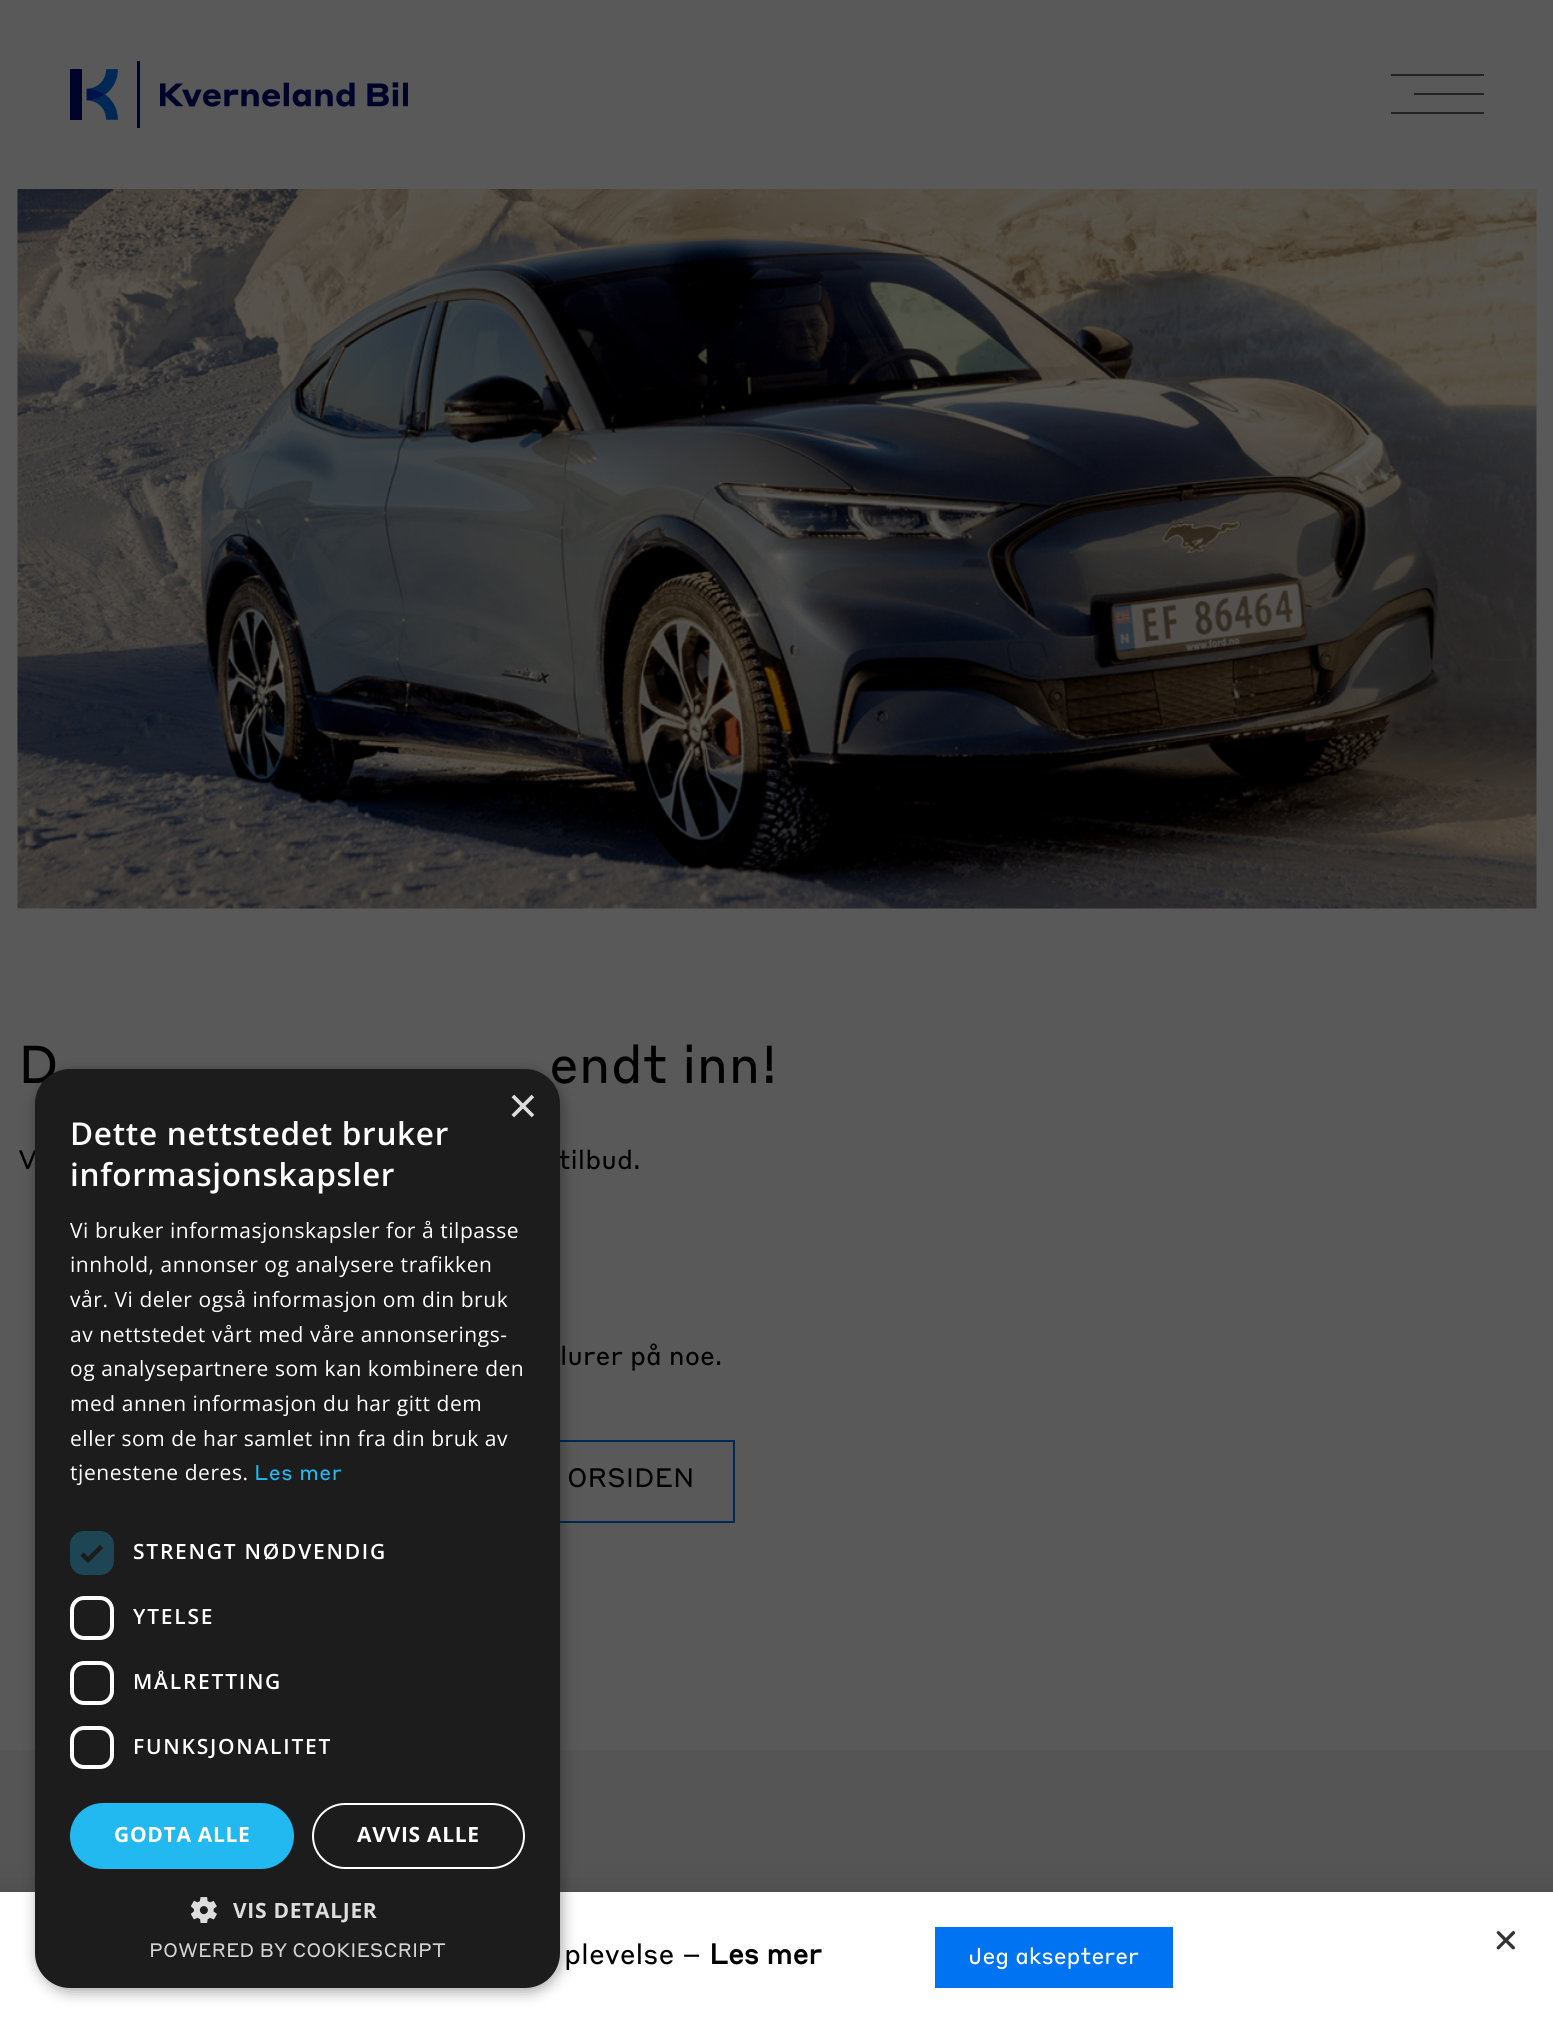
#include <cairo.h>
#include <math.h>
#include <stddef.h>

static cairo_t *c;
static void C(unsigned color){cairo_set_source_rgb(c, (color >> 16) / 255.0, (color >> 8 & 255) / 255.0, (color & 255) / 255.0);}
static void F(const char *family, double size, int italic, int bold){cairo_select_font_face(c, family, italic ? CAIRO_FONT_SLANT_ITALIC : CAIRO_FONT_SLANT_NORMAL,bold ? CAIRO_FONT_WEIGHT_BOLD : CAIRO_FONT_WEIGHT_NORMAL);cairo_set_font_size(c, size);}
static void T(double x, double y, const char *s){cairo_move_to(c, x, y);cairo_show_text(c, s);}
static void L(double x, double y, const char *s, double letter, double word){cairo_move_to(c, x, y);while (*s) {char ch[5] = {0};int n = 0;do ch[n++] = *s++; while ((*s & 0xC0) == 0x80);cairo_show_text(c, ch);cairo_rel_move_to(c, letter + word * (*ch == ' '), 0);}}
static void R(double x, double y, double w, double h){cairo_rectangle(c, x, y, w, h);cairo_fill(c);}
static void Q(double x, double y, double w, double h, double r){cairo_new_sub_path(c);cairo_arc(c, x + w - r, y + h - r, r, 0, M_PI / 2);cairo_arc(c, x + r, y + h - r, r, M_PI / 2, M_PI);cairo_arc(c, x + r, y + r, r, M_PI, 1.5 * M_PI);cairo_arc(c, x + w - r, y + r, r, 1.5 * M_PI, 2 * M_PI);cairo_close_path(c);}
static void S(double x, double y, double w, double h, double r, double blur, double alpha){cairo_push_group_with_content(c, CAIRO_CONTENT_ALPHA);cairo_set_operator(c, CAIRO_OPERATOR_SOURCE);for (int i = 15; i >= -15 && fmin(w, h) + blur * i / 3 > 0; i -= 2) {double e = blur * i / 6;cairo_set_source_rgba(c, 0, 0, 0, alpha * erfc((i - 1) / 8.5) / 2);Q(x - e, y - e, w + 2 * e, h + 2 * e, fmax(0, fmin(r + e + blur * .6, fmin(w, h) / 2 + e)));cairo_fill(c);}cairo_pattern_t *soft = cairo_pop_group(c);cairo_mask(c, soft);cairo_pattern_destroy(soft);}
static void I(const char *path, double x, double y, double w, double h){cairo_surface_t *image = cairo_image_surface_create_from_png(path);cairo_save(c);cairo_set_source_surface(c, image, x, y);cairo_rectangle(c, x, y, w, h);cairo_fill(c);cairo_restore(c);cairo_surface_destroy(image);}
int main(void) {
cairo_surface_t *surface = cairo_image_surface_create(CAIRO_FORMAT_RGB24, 1553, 2023);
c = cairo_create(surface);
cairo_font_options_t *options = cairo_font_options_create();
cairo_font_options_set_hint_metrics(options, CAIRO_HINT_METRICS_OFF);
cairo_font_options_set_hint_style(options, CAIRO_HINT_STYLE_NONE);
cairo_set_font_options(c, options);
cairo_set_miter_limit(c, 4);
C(0x595959);
cairo_paint(c);
I("1.png",70,61,338,67);
C(0x232325);
R(1391,74,93,2);
R(1414,93,70,2);
R(1391,112,93,2);
I("2.png",17,189,1520,720);
F("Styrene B",52.5,0,0);
C(0x000000);
T(18,1083,"D");
T(549,1083,"endt inn!");
F("Styrene B",26.25,0,0);
T(18,1169,"V");
T(558,1169,"tilbud.");
T(560,1365,"lurer på noe.");
cairo_rectangle(c,458,1441,276,81);
C(0x002855);
cairo_stroke(c);
C(0x000000);
T(567,1487,"ORSIDEN");
C(0x555555);
R(0,1750,1553,142);
C(0x000000);
S(-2,1901,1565,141,0,20,.2);
C(0xffffff);
R(0,1892,1553,131);
C(0x000000);
S(37,1073,525,919,35,7,.35);
C(0x1c1c1c);
Q(35,1069,525,919,35);
cairo_fill(c);
F("Liberation Sans",51,0,0);
C(0xdddddd);
T(508,1123,"×");
F("Open Sans SemiBold",31.5,0,0);
C(0xffffff);
L(70,1145,"Dette nettstedet bruker",.7,0);
L(70,1186,"informasjonskapsler",.7,0);
F("Open Sans",21,0,0);
L(70,1238,"Vi bruker informasjonskapsler for å tilpasse",.55,0);
L(70,1272,"innhold, annonser og analysere trafikken",.55,0);
L(70,1307,"vår. Vi deler også informasjon om din bruk",.55,0);
L(70,1342,"av nettstedet vårt med våre annonserings-",.55,0);
L(70,1376,"og analysepartnere som kan kombinere den",.55,0);
L(70,1411,"med annen informasjon du har gitt dem",.55,0);
L(70,1446,"eller som de har samlet inn fra din bruk av",.55,0);
L(70,1480,"tjenestene deres.",.55,0);
F("Styrene B",21,0,0);
C(0x22b8f0);
L(254,1480,"Les mer",.55,0);
C(0x1e4553);
Q(70,1531,44,44,14);
cairo_fill(c);
cairo_new_path(c);
cairo_move_to(c,82,1554);
cairo_line_to(c,88,1560);
cairo_line_to(c,101.5,1546.5);
C(0x1c1c1c);
cairo_set_line_width(c,4.6);
cairo_stroke(c);
F("Open Sans SemiBold",21,0,0);
C(0xffffff);
L(133,1559,"STRENGT NØDVENDIG",1.75,0);
Q(72,1598,40,40,12);
cairo_set_line_width(c,4);
cairo_stroke(c);
L(133,1624,"YTELSE",1.75,0);
Q(72,1663,40,40,12);
cairo_stroke(c);
L(133,1689,"MÅLRETTING",1.75,0);
Q(72,1728,40,39,12);
cairo_stroke(c);
L(133,1754,"FUNKSJONALITET",1.75,0);
C(0x22b8f0);
Q(70,1803,224,66,33);
cairo_fill(c);
F("Open Sans",21,0,1);
C(0xffffff);
L(114,1842,"GODTA ALLE",.7,0);
Q(313,1804,211,64,32);
cairo_set_line_width(c,2);
cairo_stroke(c);
L(357,1842,"AVVIS ALLE",.7,0);
I("3.png",191,1897,26,26);
C(0xdddddd);
L(233,1918,"VIS DETALJER",.7,0);
F("Styrene B",19.25,0,0);
C(0xd2d2d2);
T(149,1957,"POWERED BY COOKIESCRIPT");
I("4.png",1496,1931,20,19);
F("Styrene B",28,0,0);
C(0x000000);
T(564,1964,"plevelse –");
F("Styrene B",28,0,1);
T(709,1964,"Les mer");
C(0x0073f3);
R(935,1927,238,61);
F("Styrene B",22.75,0,0);
C(0xffffff);
T(968,1964,"Jeg aksepterer");
cairo_surface_write_to_png(surface, "o.png");
cairo_font_options_destroy(options);
cairo_destroy(c);
cairo_surface_destroy(surface);
return 0;
}
